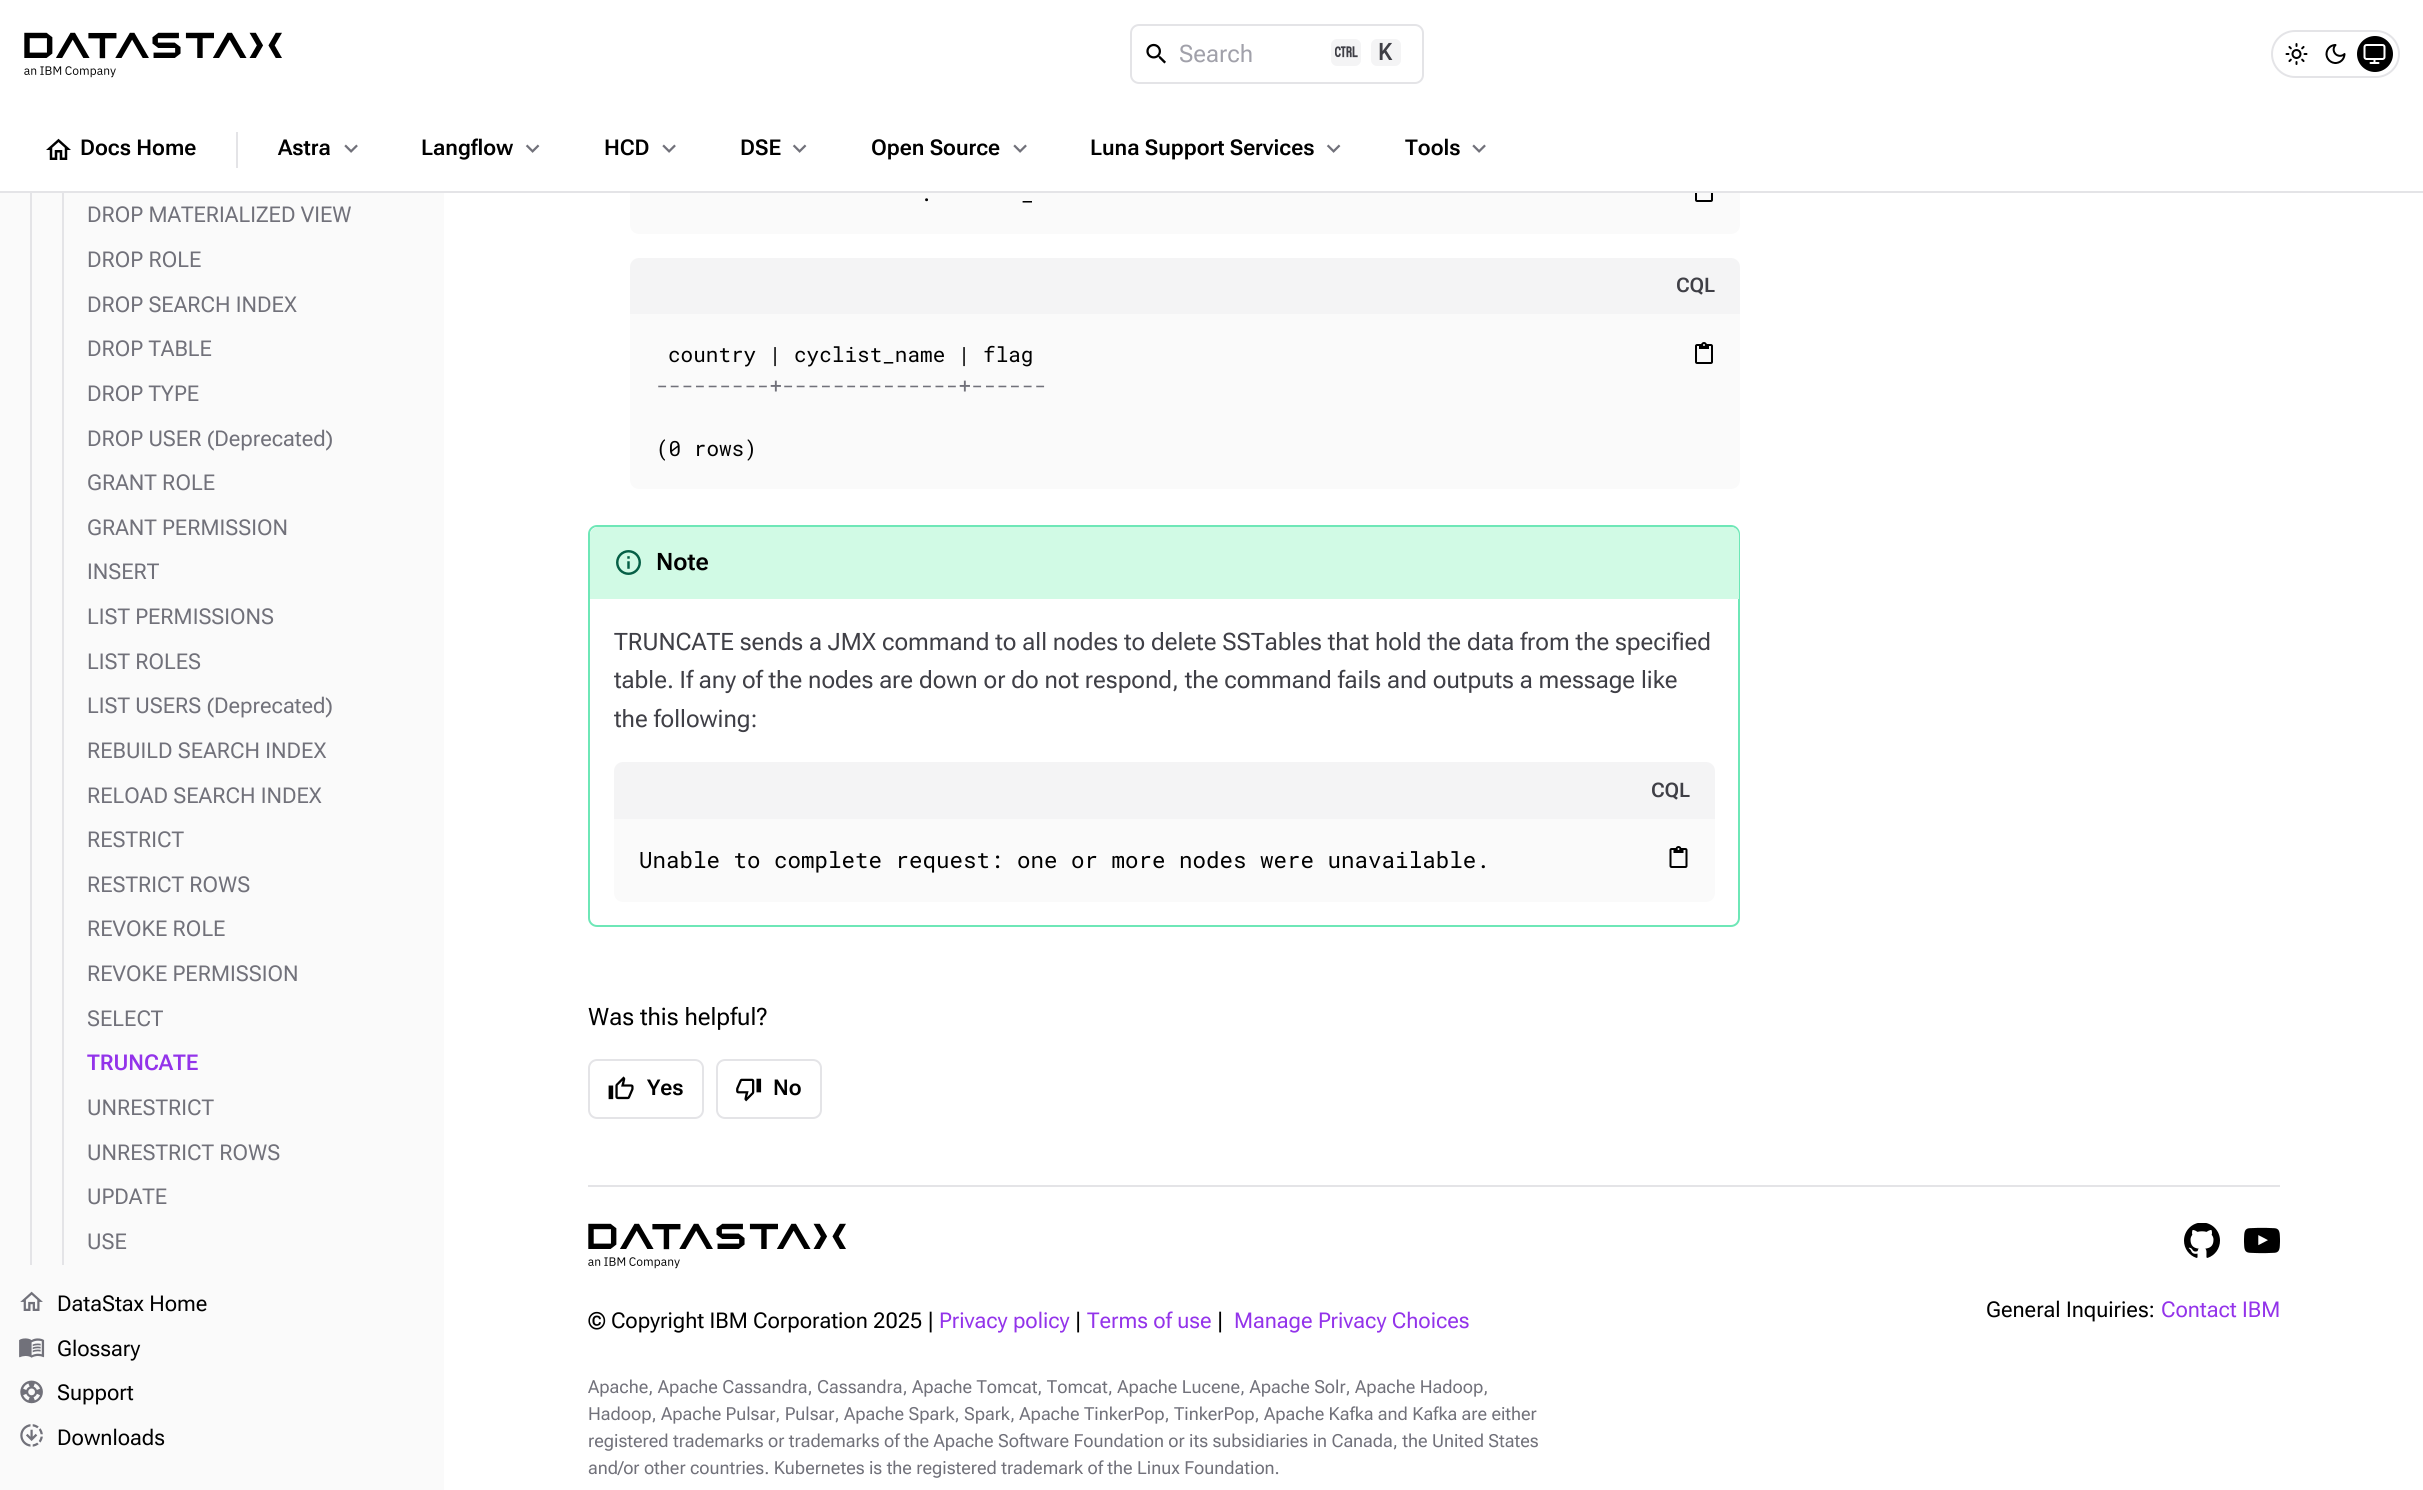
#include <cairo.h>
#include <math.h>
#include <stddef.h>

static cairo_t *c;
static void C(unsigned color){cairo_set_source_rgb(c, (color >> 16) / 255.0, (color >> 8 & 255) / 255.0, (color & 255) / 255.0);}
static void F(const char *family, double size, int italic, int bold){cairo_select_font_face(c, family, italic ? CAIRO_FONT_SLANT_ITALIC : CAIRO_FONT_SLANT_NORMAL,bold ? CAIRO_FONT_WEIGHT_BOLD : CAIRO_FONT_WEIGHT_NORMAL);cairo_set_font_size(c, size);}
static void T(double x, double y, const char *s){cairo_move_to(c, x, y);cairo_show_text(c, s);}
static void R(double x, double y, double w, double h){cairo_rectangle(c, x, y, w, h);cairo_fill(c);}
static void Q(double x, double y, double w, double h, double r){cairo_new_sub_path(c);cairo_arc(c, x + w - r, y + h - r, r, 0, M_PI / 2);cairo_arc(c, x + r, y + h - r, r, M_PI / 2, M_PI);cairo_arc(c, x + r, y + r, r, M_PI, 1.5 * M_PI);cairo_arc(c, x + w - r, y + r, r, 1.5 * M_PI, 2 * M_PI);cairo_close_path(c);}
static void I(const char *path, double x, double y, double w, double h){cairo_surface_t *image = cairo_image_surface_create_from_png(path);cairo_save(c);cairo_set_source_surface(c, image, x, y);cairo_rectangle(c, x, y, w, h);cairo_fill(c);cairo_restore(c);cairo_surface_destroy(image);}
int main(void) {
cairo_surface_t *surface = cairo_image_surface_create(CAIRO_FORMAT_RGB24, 2423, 1490);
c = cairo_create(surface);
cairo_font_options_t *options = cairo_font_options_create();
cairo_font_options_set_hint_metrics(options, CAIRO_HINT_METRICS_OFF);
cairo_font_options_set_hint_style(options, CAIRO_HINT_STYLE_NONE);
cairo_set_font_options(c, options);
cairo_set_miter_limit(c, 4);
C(0xffffff);
cairo_paint(c);
C(0xfafafa);
cairo_new_path(c);
cairo_move_to(c,630,153);
cairo_line_to(c,1740,153);
cairo_line_to(c,1740,225);
cairo_curve_to(c,1740,230,1736,234,1731,234);
cairo_line_to(c,639,234);
cairo_curve_to(c,634,234,630,230,630,225);
cairo_close_path(c);
cairo_fill(c);
C(0xffffff);
R(630,153,1110,38);
C(0xfafafa);
R(0,193,444,1297);
C(0xe4e4e7);
R(30,192,2,1073);
R(62,192,2,1073);
R(0,191,2423,2);
I("1.png",24,32,258,46);
Q(1131,25,292,58,8);
cairo_stroke(c);
I("2.png",1146,43,20,21);
F("Roboto Flex",24,0,0);
C(0xa1a1aa);
T(1179,62,"Search");
C(0xf4f4f5);
Q(1331,39,30,27,6);
cairo_fill(c);
I("3.png",1335,46,23,12);
Q(1371,39,30,27,6);
cairo_fill(c);
F("Roboto Mono Medium",24,0,0);
C(0x3f3f46);
T(1378,60,"K");
Q(2272,31,127,46,23);
C(0xe4e4e7);
cairo_stroke(c);
I("4.png",2285,43,23,22);
I("5.png",2325,44,21,20);
C(0x000000);
cairo_arc(c,2375,54,18,0,2 * M_PI);
cairo_fill(c);
I("6.png",2363,44,23,20);
I("7.png",46,138,25,22);
F("Roboto Flex SemiBold",21.75,0,0);
T(80,155,"Docs Home");
C(0xe4e4e7);
R(236,132,2,36);
C(0x000000);
T(278,155,"Astra");
I("8.png",344,144,14,9);
T(421,155,"Langflow");
I("9.png",525,144,15,9);
T(604,155,"HCD");
I("8.png",662,144,14,9);
T(740,155,"DSE");
I("9.png",792,144,15,9);
T(871,155,"Open Source");
I("8.png",1013,144,14,9);
T(1090,155,"Luna Support Services");
I("9.png",1326,144,15,9);
T(1405,155,"Tools");
I("8.png",1472,144,14,9);
F("Roboto Flex",21.75,0,0);
C(0x71717a);
T(87,222,"DROP MATERIALIZED VIEW");
T(87,267,"DROP ROLE");
T(87,312,"DROP SEARCH INDEX");
T(87,356,"DROP TABLE");
T(87,401,"DROP TYPE");
T(87,446,"DROP USER (Deprecated)");
T(87,490,"GRANT ROLE");
T(87,535,"GRANT PERMISSION");
T(87,579,"INSERT");
T(87,624,"LIST PERMISSIONS");
T(87,669,"LIST ROLES");
T(87,713,"LIST USERS (Deprecated)");
T(87,758,"REBUILD SEARCH INDEX");
T(87,803,"RELOAD SEARCH INDEX");
T(87,847,"RESTRICT");
T(87,892,"RESTRICT ROWS");
T(87,936,"REVOKE ROLE");
T(87,981,"REVOKE PERMISSION");
T(87,1026,"SELECT");
F("Roboto Flex SemiBold",21.75,0,0);
C(0x9333ea);
T(87,1070,"TRUNCATE");
F("Roboto Flex",21.75,0,0);
C(0x71717a);
T(87,1115,"UNRESTRICT");
T(87,1160,"UNRESTRICT ROWS");
T(87,1204,"UPDATE");
T(87,1249,"USE");
I("10.png",20,1291,23,20);
C(0x000000);
T(57,1311,"DataStax Home");
I("11.png",19,1338,26,20);
T(57,1356,"Glossary");
I("12.png",20,1380,23,24);
T(57,1400,"Support");
I("13.png",20,1424,23,23);
T(57,1445,"Downloads");
F("Roboto Mono",21,0,0);
T(920,201,".");
T(1021,201,"_");
I("14.png",1695,193,18,9);
C(0xf4f4f5);
cairo_new_path(c);
cairo_move_to(c,639,258);
cairo_line_to(c,1731,258);
cairo_curve_to(c,1736,258,1740,262,1740,267);
cairo_line_to(c,1740,314);
cairo_line_to(c,630,314);
cairo_line_to(c,630,267);
cairo_curve_to(c,630,262,634,258,639,258);
cairo_close_path(c);
cairo_fill(c);
F("Roboto Flex SemiBold",20,0,0);
C(0x3f3f46);
T(1676,292,"CQL");
C(0xfafafa);
cairo_new_path(c);
cairo_move_to(c,630,314);
cairo_line_to(c,1740,314);
cairo_line_to(c,1740,480);
cairo_curve_to(c,1740,485,1736,489,1731,489);
cairo_line_to(c,639,489);
cairo_curve_to(c,634,489,630,485,630,480);
cairo_close_path(c);
cairo_fill(c);
F("Roboto Mono",21,0,0);
C(0x000000);
T(668,362,"country | cyclist_name | flag");
C(0x71717a);
T(656,393,"---------+--------------+------");
C(0x000000);
T(656,456,"(0 rows)");
I("15.png",1695,342,18,22);
Q(589,526,1150,400,8);
C(0x6ee7b7);
cairo_stroke(c);
C(0xd1fae5);
cairo_new_path(c);
cairo_move_to(c,598,527);
cairo_line_to(c,1731,527);
cairo_curve_to(c,1735.5,527,1739,530.5,1739,535);
cairo_line_to(c,1739,599);
cairo_line_to(c,590,599);
cairo_line_to(c,590,535);
cairo_curve_to(c,590,530.5,593.5,527,598,527);
cairo_close_path(c);
cairo_fill(c);
I("16.png",616,550,25,25);
F("Roboto Flex SemiBold",24,0,0);
C(0x000000);
T(656,570,"Note");
F("Roboto Flex",24,0,0);
C(0x3f3f46);
T(614,650,"TRUNCATE sends a JMX command to all nodes to delete SSTables that hold the data from the specified");
T(614,688,"table. If any of the nodes are down or do not respond, the command fails and outputs a message like");
T(614,727,"the following:");
C(0xf4f4f5);
cairo_new_path(c);
cairo_move_to(c,623,762);
cairo_line_to(c,1706,762);
cairo_curve_to(c,1711,762,1715,766,1715,771);
cairo_line_to(c,1715,819);
cairo_line_to(c,614,819);
cairo_line_to(c,614,771);
cairo_curve_to(c,614,766,618,762,623,762);
cairo_close_path(c);
cairo_fill(c);
F("Roboto Flex SemiBold",20,0,0);
C(0x3f3f46);
T(1651,797,"CQL");
C(0xfafafa);
cairo_new_path(c);
cairo_move_to(c,614,819);
cairo_line_to(c,1715,819);
cairo_line_to(c,1715,893);
cairo_curve_to(c,1715,898,1711,902,1706,902);
cairo_line_to(c,623,902);
cairo_curve_to(c,618,902,614,898,614,893);
cairo_close_path(c);
cairo_fill(c);
F("Roboto Mono",22.5,0,0);
C(0x000000);
T(639,868,"Unable to complete request: one or more nodes were unavailable.");
I("17.png",1669,846,19,22);
F("Roboto Flex",24,0,0);
T(588,1025,"Was this helpful?");
Q(589,1060,114,58,8);
C(0xe4e4e7);
cairo_stroke(c);
I("18.png",608,1076,26,24);
F("Roboto Flex SemiBold",21.75,0,0);
C(0x000000);
T(647,1095,"Yes");
Q(717,1060,104,58,8);
C(0xe4e4e7);
cairo_stroke(c);
I("19.png",736,1078,26,24);
C(0x000000);
T(773,1095,"No");
C(0xe4e4e7);
R(588,1185,1692,2);
I("1.png",588,1223,258,46);
F("Roboto Flex",21.75,0,0);
C(0x000000);
T(588,1328,"© Copyright IBM Corporation 2025 |");
C(0x9333ea);
T(939,1328,"Privacy policy");
C(0x000000);
T(1075,1328,"|");
C(0x9333ea);
T(1087,1328,"Terms of use");
C(0x000000);
T(1217,1328,"|");
C(0x9333ea);
T(1234,1328,"Manage Privacy Choices");
F("Roboto Flex",18,0,0);
C(0x71717a);
T(588,1393,"Apache, Apache Cassandra, Cassandra, Apache Tomcat, Tomcat, Apache Lucene, Apache Solr, Apache Hadoop,");
T(588,1420,"Hadoop, Apache Pulsar, Pulsar, Apache Spark, Spark, Apache TinkerPop, TinkerPop, Apache Kafka and Kafka are either");
T(588,1447,"registered trademarks or trademarks of the Apache Software Foundation or its subsidiaries in Canada, the United States");
T(588,1474,"and/or other countries. Kubernetes is the registered trademark of the Linux Foundation.");
I("20.png",2184,1223,36,35);
I("21.png",2244,1227,36,27);
F("Roboto Flex",21.75,0,0);
C(0x000000);
T(1986,1317,"General Inquiries:");
C(0x9333ea);
T(2161,1317,"Contact IBM");
cairo_surface_write_to_png(surface, "o.png");
cairo_font_options_destroy(options);
cairo_destroy(c);
cairo_surface_destroy(surface);
return 0;
}
